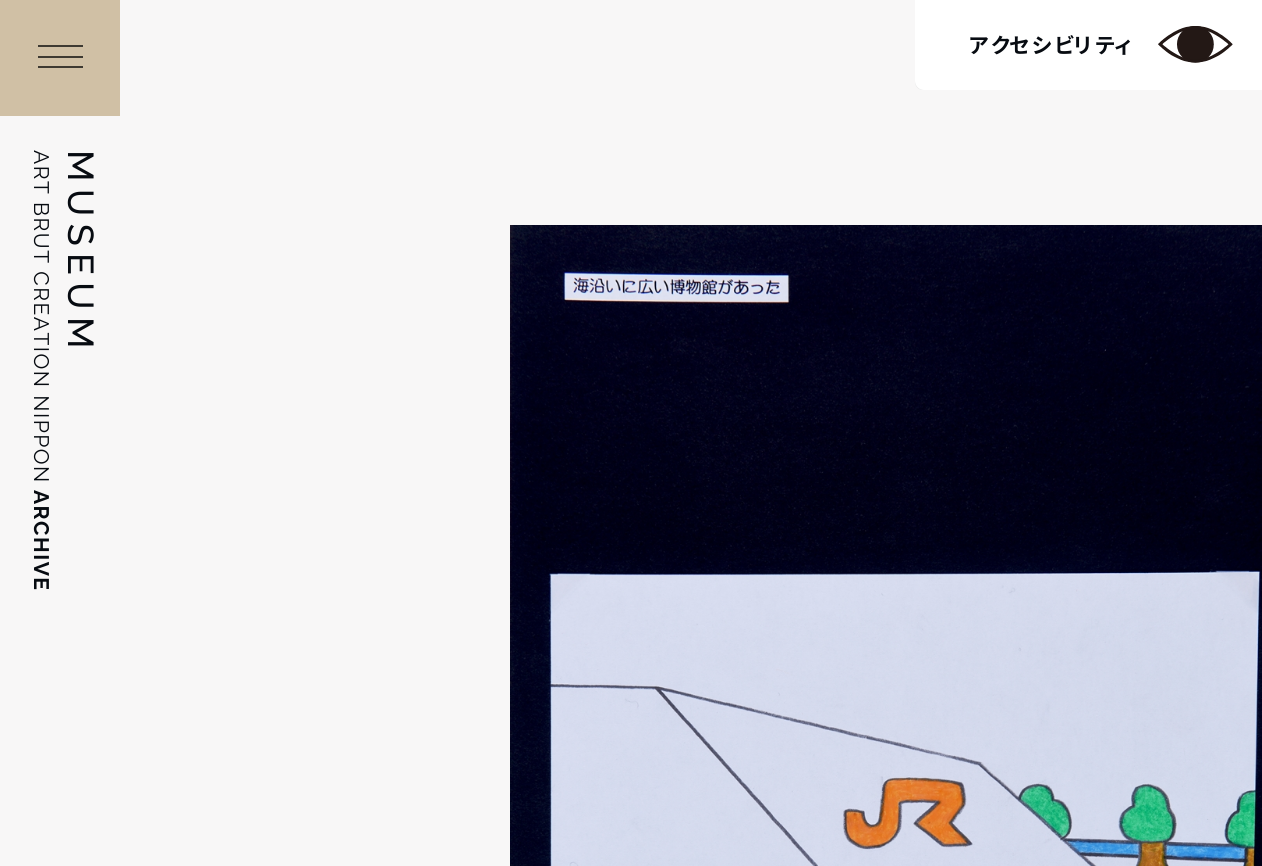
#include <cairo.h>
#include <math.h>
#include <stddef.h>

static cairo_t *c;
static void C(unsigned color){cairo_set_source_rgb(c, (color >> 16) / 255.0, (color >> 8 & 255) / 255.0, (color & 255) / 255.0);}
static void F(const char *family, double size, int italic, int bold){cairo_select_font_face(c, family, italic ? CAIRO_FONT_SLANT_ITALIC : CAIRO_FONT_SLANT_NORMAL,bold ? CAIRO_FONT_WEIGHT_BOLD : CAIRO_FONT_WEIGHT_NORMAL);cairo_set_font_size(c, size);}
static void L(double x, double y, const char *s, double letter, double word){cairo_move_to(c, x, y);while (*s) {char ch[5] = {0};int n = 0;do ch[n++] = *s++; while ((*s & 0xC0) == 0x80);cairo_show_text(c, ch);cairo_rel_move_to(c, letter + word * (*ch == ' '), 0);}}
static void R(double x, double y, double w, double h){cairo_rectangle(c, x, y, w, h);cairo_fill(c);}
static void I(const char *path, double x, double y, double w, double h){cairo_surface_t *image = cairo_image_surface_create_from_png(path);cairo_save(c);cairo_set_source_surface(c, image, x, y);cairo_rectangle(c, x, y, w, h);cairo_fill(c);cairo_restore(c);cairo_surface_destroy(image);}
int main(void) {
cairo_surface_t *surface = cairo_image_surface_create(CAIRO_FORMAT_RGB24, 1262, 866);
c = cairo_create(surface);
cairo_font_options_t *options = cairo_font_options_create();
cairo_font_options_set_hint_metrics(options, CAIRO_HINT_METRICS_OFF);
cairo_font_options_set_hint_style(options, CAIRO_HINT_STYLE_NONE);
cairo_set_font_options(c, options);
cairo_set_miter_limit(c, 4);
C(0xf8f7f7);
cairo_paint(c);
C(0xd0c0a5);
R(0,0,120,116);
C(0x3e3a32);
R(38,56,45,2);
R(38,45,45,2);
R(38,66,45,2);
C(0xe5e5e5);
cairo_new_path(c);
cairo_move_to(c,915,0);
cairo_line_to(c,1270,0);
cairo_line_to(c,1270,82);
cairo_curve_to(c,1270,86.5,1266.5,90,1262,90);
cairo_line_to(c,923,90);
cairo_curve_to(c,918.5,90,915,86.5,915,82);
cairo_close_path(c);
cairo_fill(c);
cairo_save(c);
cairo_new_path(c);
cairo_move_to(c,915,0);
cairo_line_to(c,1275,0);
cairo_line_to(c,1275,82);
cairo_curve_to(c,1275,86.5,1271.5,90,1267,90);
cairo_line_to(c,923,90);
cairo_curve_to(c,918.5,90,915,86.5,915,82);
cairo_close_path(c);
cairo_clip(c);
C(0xffffff);
cairo_new_path(c);
cairo_move_to(c,915,0);
cairo_line_to(c,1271,0);
cairo_line_to(c,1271,81);
cairo_curve_to(c,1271,86,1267,90,1262,90);
cairo_line_to(c,924,90);
cairo_curve_to(c,919,90,915,86,915,81);
cairo_close_path(c);
cairo_fill(c);
cairo_restore(c);
I("1.png",1158,26,75,37);
F("Noto Sans JP",21,0,1);
C(0x070b11);
L(968,53,"アク",1.5,0);
L(1009,53,"セシビ",1.5,0);
L(1072,53,"リテ",1.5,0);
L(1113,53,"ィ",1.5,0);
F("Raleway",21,0,0);
cairo_save(c);
cairo_translate(c,34,150);
cairo_rotate(c,90 * M_PI / 180);
L(0,0,"ART BRUT CREATION NIPPON",1.5,0);
cairo_restore(c);
F("Raleway",21,0,1);
cairo_save(c);
cairo_translate(c,34,490);
cairo_rotate(c,90 * M_PI / 180);
L(0,0,"ARCHIVE",1.5,0);
cairo_restore(c);
F("Raleway Medium",36,0,0);
cairo_save(c);
cairo_translate(c,68,150);
cairo_rotate(c,90 * M_PI / 180);
L(0,0,"MUSEUM",7.5,0);
cairo_restore(c);
I("2.png",510,225,752,641);
cairo_surface_write_to_png(surface, "o.png");
cairo_font_options_destroy(options);
cairo_destroy(c);
cairo_surface_destroy(surface);
return 0;
}
